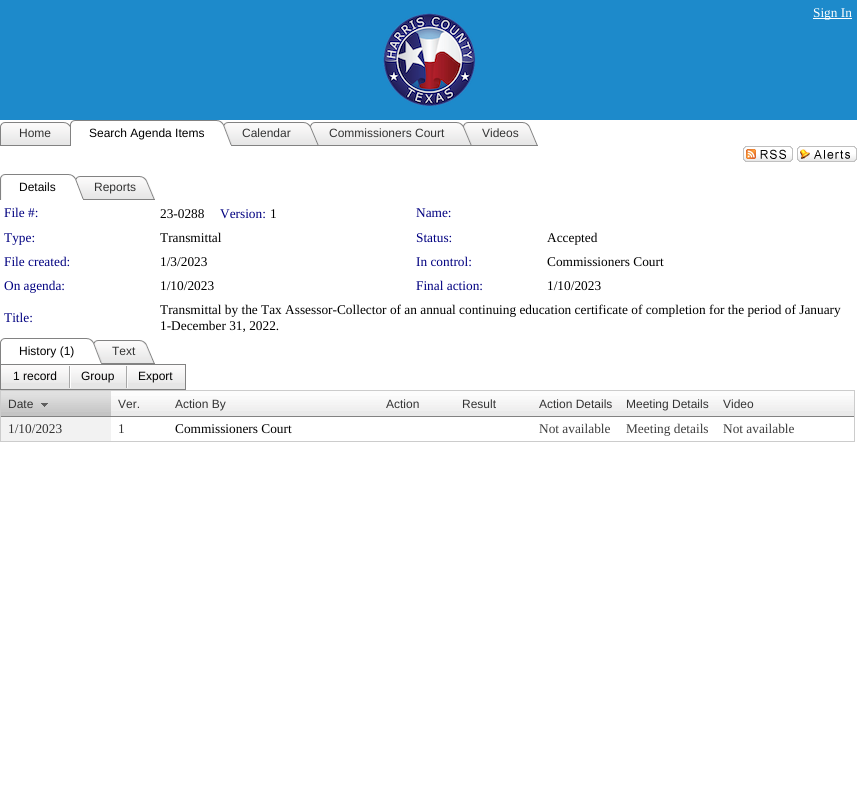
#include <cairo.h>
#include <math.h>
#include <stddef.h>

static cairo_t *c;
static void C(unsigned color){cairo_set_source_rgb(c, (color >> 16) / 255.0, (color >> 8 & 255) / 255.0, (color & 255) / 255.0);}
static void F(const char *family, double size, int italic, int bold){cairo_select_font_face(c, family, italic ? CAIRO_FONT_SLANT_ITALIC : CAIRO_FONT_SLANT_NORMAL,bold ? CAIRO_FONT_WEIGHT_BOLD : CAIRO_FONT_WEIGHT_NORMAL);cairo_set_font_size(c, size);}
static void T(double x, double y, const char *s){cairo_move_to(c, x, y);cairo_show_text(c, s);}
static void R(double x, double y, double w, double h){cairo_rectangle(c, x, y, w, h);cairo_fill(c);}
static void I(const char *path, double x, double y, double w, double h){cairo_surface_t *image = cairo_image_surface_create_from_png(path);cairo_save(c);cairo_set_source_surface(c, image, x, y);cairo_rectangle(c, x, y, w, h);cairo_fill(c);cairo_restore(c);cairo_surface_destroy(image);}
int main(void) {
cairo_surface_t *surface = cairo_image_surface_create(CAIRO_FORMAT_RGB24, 857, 803);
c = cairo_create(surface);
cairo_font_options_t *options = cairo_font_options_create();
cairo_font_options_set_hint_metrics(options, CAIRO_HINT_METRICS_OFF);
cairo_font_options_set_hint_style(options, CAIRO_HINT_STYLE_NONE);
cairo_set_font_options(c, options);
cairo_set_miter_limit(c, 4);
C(0xffffff);
cairo_paint(c);
C(0x1d8acb);
R(0,0,857,120);
I("1.png",383,13,93,93);
C(0xffffff);
R(813,18,39,1);
F("Liberation Serif",13.33,0,0);
T(813,17,"Sign In");
I("2.png",0,122,9,24);
I("3.png",9,122,61,24);
F("Liberation Sans",12,0,0);
C(0x333333);
T(19,137,"Home");
I("4.png",70,120,9,26);
I("5.png",79,120,144,5);
C(0x000000);
T(89,137,"Search Agenda Items");
I("6.png",223,122,9,24);
I("7.png",232,122,78,24);
C(0x333333);
T(242,137,"Calendar");
I("8.png",310,122,9,24);
I("9.png",319,122,144,24);
T(329,137,"Commissioners Court");
I("10.png",463,122,9,24);
I("11.png",472,122,66,24);
T(482,137,"Videos");
I("12.png",743,146,50,16);
I("13.png",797,146,60,16);
I("14.png",0,174,10,26);
I("15.png",9,174,66,5);
C(0x000000);
T(19,191,"Details");
I("16.png",75,176,9,24);
I("17.png",84,176,71,24);
C(0x333333);
T(94,191,"Reports");
F("Liberation Serif",13.33,0,0);
C(0x000080);
T(4,217,"File #:");
C(0x000000);
T(160,218,"23-0288");
C(0x000080);
T(220,218,"Version:");
C(0x000000);
T(270,218,"1");
C(0x000080);
T(416,217,"Name:");
T(4,242,"Type:");
C(0x000000);
T(160,242,"Transmittal");
C(0x000080);
T(416,242,"Status:");
C(0x000000);
T(547,242,"Accepted");
C(0x000080);
T(4,266,"File created:");
C(0x000000);
T(160,266,"1/3/2023");
C(0x000080);
T(416,266,"In control:");
C(0x000000);
T(547,266,"Commissioners Court");
C(0x000080);
T(4,290,"On agenda:");
C(0x000000);
T(160,290,"1/10/2023");
C(0x000080);
T(416,290,"Final action:");
C(0x000000);
T(547,290,"1/10/2023");
C(0x000080);
T(4,322,"Title:");
C(0x000000);
T(160,314,"Transmittal by the Tax Assessor-Collector of an annual continuing education certificate of completion for the period of January");
T(160,330,"1-December 31, 2022.");
I("4.png",0,338,9,26);
I("18.png",9,338,84,5);
F("Liberation Sans",12,0,0);
T(19,355,"History (1)");
I("19.png",93,340,9,24);
I("20.png",102,340,53,24);
C(0x333333);
T(112,355,"Text");
C(0xe6e6e6);
R(1,383,184,6);
I("21.png",1,365,184,18);
cairo_rectangle(c,.5,364.5,185,25);
C(0x828282);
cairo_set_line_width(c,1);
cairo_stroke(c);
C(0x000000);
T(13,380,"1 record");
I("22.png",69,366,2,22);
T(81,380,"Group");
I("23.png",126,366,2,22);
T(138,380,"Export");
cairo_rectangle(c,.5,390.5,854,51);
C(0xcccccc);
cairo_stroke(c);
C(0xc4c4c4);
R(1,412,110,4);
I("24.png",1,391,110,21);
C(0x828282);
R(1,416,853,1);
C(0x333333);
T(8,408,"Date");
I("25.png",41,403,7,4);
C(0xeaeaea);
R(111,411,743,5);
I("26.png",111,391,57,20);
C(0x333333);
T(118,408,"Ver.");
I("27.png",168,391,211,20);
T(175,408,"Action By");
I("28.png",379,391,76,20);
T(386,408,"Action");
I("29.png",455,391,77,20);
T(462,408,"Result");
I("30.png",532,391,87,20);
T(539,408,"Action Details");
I("31.png",619,391,97,20);
T(626,408,"Meeting Details");
I("32.png",716,391,138,20);
T(723,408,"Video");
C(0xf2f2f2);
R(1,417,110,24);
F("Liberation Serif",13.33,0,0);
C(0x333333);
T(8,433,"1/10/2023");
T(118,433,"1");
C(0x000000);
T(175,433,"Commissioners Court");
C(0x3d3d3d);
T(539,433,"Not available");
T(626,433,"Meeting details");
T(723,433,"Not available");
cairo_surface_write_to_png(surface, "o.png");
cairo_font_options_destroy(options);
cairo_destroy(c);
cairo_surface_destroy(surface);
return 0;
}
